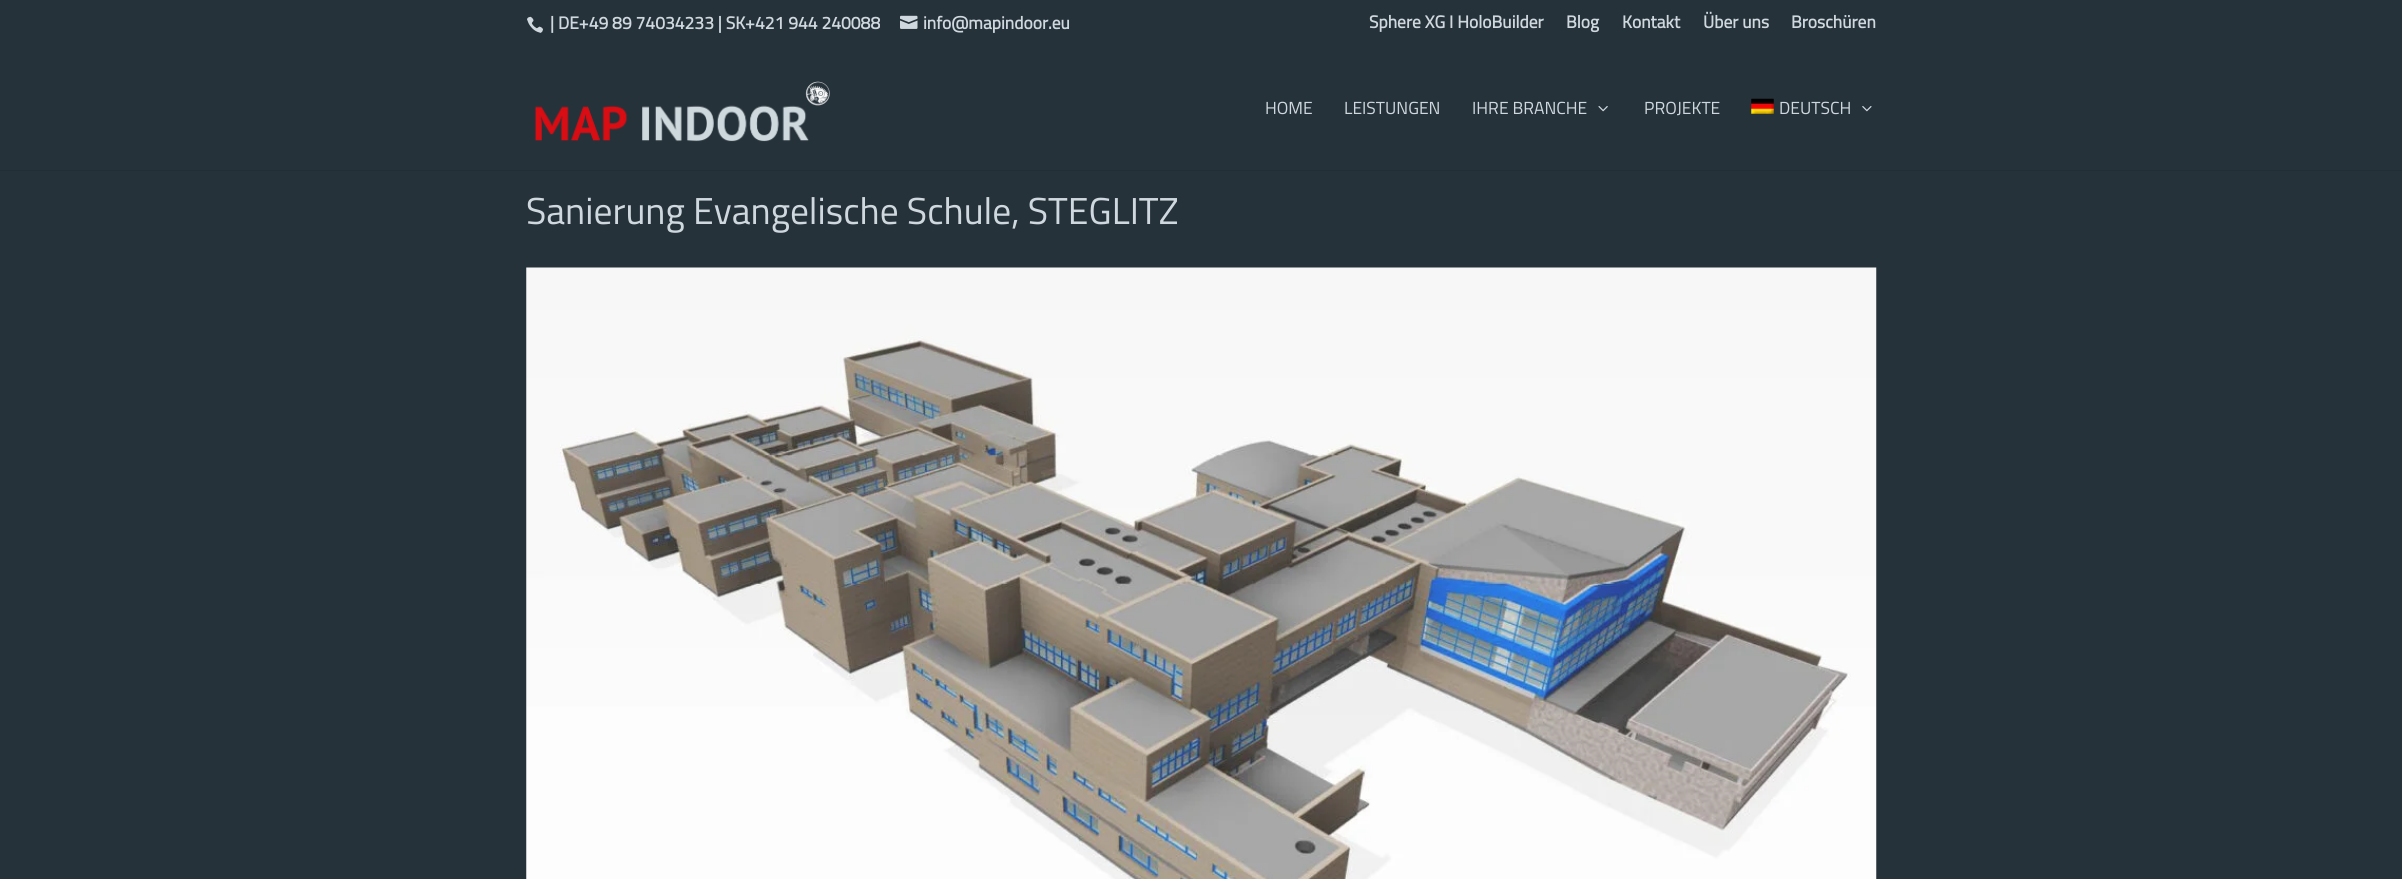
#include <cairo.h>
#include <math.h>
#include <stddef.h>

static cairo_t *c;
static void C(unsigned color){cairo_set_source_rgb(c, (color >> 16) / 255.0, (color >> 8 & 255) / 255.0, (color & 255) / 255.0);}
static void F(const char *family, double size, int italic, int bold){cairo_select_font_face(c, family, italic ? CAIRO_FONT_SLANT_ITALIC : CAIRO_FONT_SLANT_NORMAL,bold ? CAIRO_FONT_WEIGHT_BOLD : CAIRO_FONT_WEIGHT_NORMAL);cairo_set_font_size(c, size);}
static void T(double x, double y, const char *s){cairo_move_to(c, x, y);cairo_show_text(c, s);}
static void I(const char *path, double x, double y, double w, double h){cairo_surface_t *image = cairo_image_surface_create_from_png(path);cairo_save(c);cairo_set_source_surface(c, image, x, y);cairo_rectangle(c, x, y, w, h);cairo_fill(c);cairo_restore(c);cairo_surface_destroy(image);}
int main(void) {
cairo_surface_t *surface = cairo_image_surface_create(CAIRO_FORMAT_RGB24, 2402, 879);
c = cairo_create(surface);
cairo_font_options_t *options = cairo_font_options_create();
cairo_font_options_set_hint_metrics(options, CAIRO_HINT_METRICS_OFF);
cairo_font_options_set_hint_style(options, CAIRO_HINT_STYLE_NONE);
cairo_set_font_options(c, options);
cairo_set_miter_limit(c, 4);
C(0x26323a);
cairo_paint(c);
I("1.png",527,16,16,17);
F("Titillium Web",17.5,0,1);
C(0xcfd8de);
T(550,29,"| DE+49 89 74034233 | SK+421 944 240088");
I("2.png",900,15,18,14);
T(923,29,"info@mapindoor.eu");
T(1369,28,"Sphere XG I HoloBuilder");
T(1566,28,"Blog");
T(1622,28,"Kontakt");
T(1703,28,"Über uns");
T(1791,28,"Broschüren");
C(0x222d34);
cairo_new_path(c);
cairo_move_to(c,0,170);
cairo_line_to(c,0,171);
cairo_line_to(c,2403,171);
cairo_line_to(c,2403,46);
cairo_line_to(c,2402,46);
cairo_line_to(c,2402,170);
cairo_close_path(c);
cairo_fill(c);
I("3.png",534,81,296,61);
F("Titillium Web",17.5,0,0);
C(0xcfd8de);
T(1265,114,"HOME");
T(1344,114,"LEISTUNGEN");
T(1472,114,"IHRE BRANCHE");
I("4.png",1598,106,10,6);
T(1644,114,"PROJEKTE");
I("5.png",1751,98,23,16);
T(1779,114,"DEUTSCH");
I("6.png",1862,106,10,6);
F("Titillium Web",37.5,0,0);
T(526,224,"Sanierung Evangelische Schule, STEGLITZ");
I("7.png",526,267,1351,612);
cairo_surface_write_to_png(surface, "o.png");
cairo_font_options_destroy(options);
cairo_destroy(c);
cairo_surface_destroy(surface);
return 0;
}
